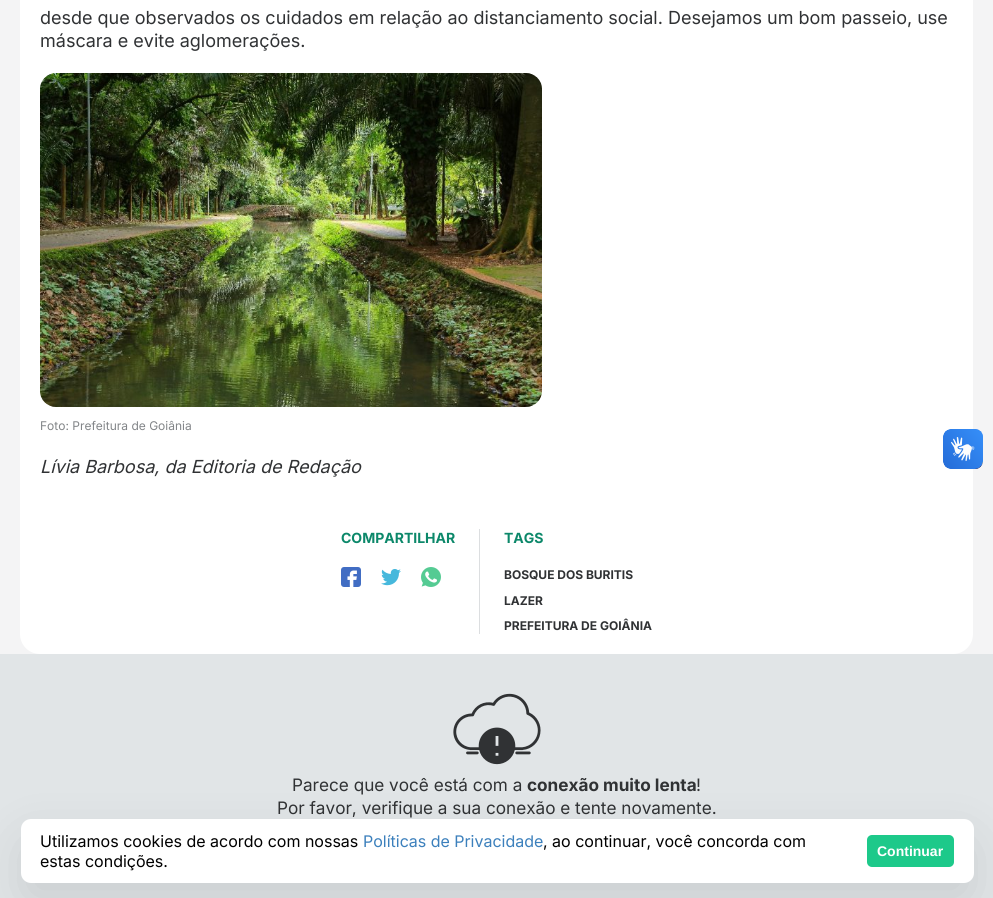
#include <cairo.h>
#include <math.h>
#include <stddef.h>

static cairo_t *c;
static void C(unsigned color){cairo_set_source_rgb(c, (color >> 16) / 255.0, (color >> 8 & 255) / 255.0, (color & 255) / 255.0);}
static void F(const char *family, double size, int italic, int bold){cairo_select_font_face(c, family, italic ? CAIRO_FONT_SLANT_ITALIC : CAIRO_FONT_SLANT_NORMAL,bold ? CAIRO_FONT_WEIGHT_BOLD : CAIRO_FONT_WEIGHT_NORMAL);cairo_set_font_size(c, size);}
static void T(double x, double y, const char *s){cairo_move_to(c, x, y);cairo_show_text(c, s);}
static void R(double x, double y, double w, double h){cairo_rectangle(c, x, y, w, h);cairo_fill(c);}
static void Q(double x, double y, double w, double h, double r){cairo_new_sub_path(c);cairo_arc(c, x + w - r, y + h - r, r, 0, M_PI / 2);cairo_arc(c, x + r, y + h - r, r, M_PI / 2, M_PI);cairo_arc(c, x + r, y + r, r, M_PI, 1.5 * M_PI);cairo_arc(c, x + w - r, y + r, r, 1.5 * M_PI, 2 * M_PI);cairo_close_path(c);}
static void S(double x, double y, double w, double h, double r, double blur, double alpha){cairo_push_group_with_content(c, CAIRO_CONTENT_ALPHA);cairo_set_operator(c, CAIRO_OPERATOR_SOURCE);for (int i = 15; i >= -15 && fmin(w, h) + blur * i / 3 > 0; i -= 2) {double e = blur * i / 6;cairo_set_source_rgba(c, 0, 0, 0, alpha * erfc((i - 1) / 8.5) / 2);Q(x - e, y - e, w + 2 * e, h + 2 * e, fmax(0, fmin(r + e + blur * .6, fmin(w, h) / 2 + e)));cairo_fill(c);}cairo_pattern_t *soft = cairo_pop_group(c);cairo_mask(c, soft);cairo_pattern_destroy(soft);}
static void I(const char *path, double x, double y, double w, double h){cairo_surface_t *image = cairo_image_surface_create_from_png(path);cairo_save(c);cairo_set_source_surface(c, image, x, y);cairo_rectangle(c, x, y, w, h);cairo_fill(c);cairo_restore(c);cairo_surface_destroy(image);}
int main(void) {
cairo_surface_t *surface = cairo_image_surface_create(CAIRO_FORMAT_RGB24, 993, 898);
c = cairo_create(surface);
cairo_font_options_t *options = cairo_font_options_create();
cairo_font_options_set_hint_metrics(options, CAIRO_HINT_METRICS_OFF);
cairo_font_options_set_hint_style(options, CAIRO_HINT_STYLE_NONE);
cairo_set_font_options(c, options);
cairo_set_miter_limit(c, 4);
C(0xf4f4f5);
cairo_paint(c);
C(0xffffff);
Q(20,-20,953,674,20);
cairo_fill(c);
F("Inter",18,0,0);
C(0x303234);
T(40,24,"desde que observados os cuidados em relação ao distanciamento social. Desejamos um bom passeio, use");
T(40,47,"máscara e evite aglomerações.");
I("1.png",40,73,502,334);
F("Inter",12,0,0);
C(0x828588);
T(40,430,"Foto: Prefeitura de Goiânia");
F("Inter",18,1,0);
C(0x303234);
T(40,473,"Lívia Barbosa, da Editoria de Redação");
F("Inter",14,0,1);
C(0x0c886a);
T(341,543,"COMPARTILHAR");
I("2.png",341,567,20,20);
I("3.png",381,569,20,17);
I("4.png",421,567,20,20);
C(0xdcdee0);
R(479,529,1,105);
C(0x0c886a);
T(504,543,"TAGS");
F("Inter",12,0,1);
C(0x303234);
T(504,579,"BOSQUE DOS BURITIS");
T(504,605,"LAZER");
T(504,630,"PREFEITURA DE GOIÂNIA");
C(0xe1e5e7);
R(0,654,993,244);
I("5.png",453,693,88,72);
F("Inter",17.15,0,0);
C(0x303234);
T(292,791,"Parece que você está com a");
F("Inter",17.15,0,1);
T(527,791,"conexão muito lenta");
F("Inter",17.15,0,0);
T(696,791,"!");
T(277,814,"Por favor, verifique a sua conexão e tente novamente.");
I("6.png",943,429,40,40);
I("7.png",943,429,40,40);
C(0x000000);
S(21,839,953,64,10,25,.1);
C(0xffffff);
Q(21,819,953,64,10);
cairo_fill(c);
F("Inter",16,0,0);
C(0x000000);
T(40,847,"Utilizamos cookies de acordo com nossas");
C(0x3c80bc);
T(363,847,"Políticas de Privacidade");
C(0x000000);
T(543,847,", ao continuar, você concorda com");
T(40,867,"estas condições.");
C(0x1dc98a);
Q(867,835,87,32,5);
cairo_fill(c);
F("Liberation Sans",14,0,1);
C(0xffffff);
T(877,856,"Continuar");
cairo_surface_write_to_png(surface, "o.png");
cairo_font_options_destroy(options);
cairo_destroy(c);
cairo_surface_destroy(surface);
return 0;
}
